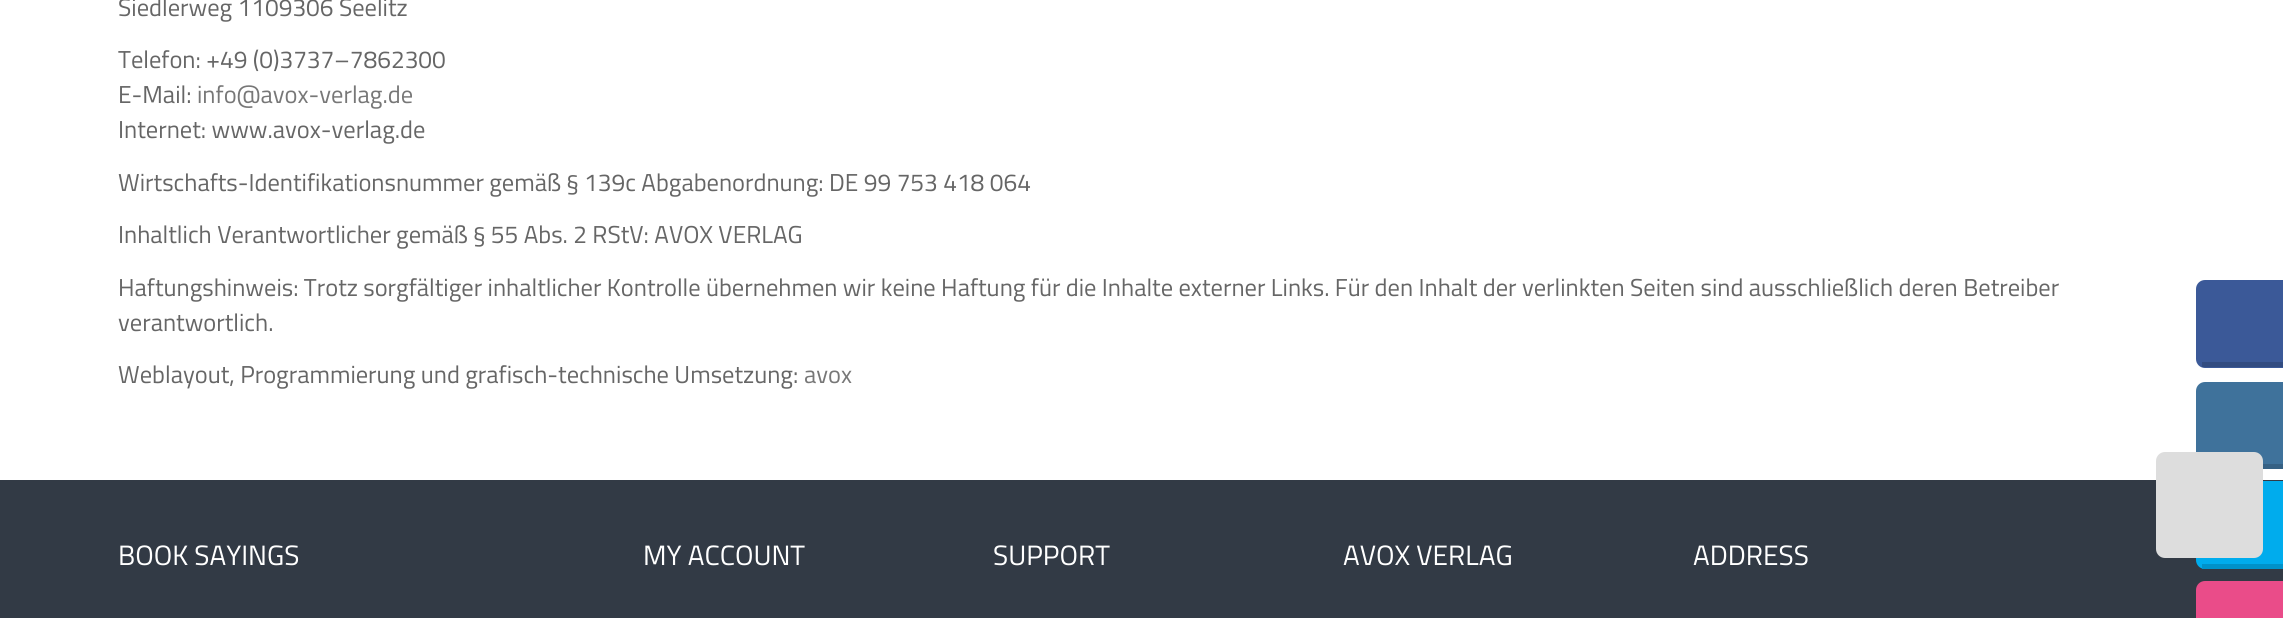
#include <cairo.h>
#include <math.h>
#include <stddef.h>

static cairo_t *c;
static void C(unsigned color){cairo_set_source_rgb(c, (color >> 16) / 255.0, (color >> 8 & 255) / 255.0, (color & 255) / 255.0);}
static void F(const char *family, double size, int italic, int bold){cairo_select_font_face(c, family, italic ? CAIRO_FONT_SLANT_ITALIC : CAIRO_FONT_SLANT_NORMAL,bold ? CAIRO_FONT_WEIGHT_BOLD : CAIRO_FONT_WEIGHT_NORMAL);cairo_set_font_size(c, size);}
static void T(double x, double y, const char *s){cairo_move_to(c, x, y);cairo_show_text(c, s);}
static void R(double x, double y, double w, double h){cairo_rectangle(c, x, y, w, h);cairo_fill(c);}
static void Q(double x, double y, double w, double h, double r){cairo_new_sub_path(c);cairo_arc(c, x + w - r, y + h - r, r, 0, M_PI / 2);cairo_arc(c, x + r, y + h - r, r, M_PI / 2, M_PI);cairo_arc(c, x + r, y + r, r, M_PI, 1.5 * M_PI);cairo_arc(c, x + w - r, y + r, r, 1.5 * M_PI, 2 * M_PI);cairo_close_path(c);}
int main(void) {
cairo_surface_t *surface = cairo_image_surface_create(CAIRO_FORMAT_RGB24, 2283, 618);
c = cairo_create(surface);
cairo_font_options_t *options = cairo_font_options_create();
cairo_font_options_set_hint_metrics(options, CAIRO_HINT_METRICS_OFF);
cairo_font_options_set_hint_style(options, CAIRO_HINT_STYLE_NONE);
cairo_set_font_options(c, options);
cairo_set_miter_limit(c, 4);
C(0xffffff);
cairo_paint(c);
F("Titillium Web",24.5,0,0);
C(0x666666);
T(118,16,"Siedlerweg 1109306 Seelitz");
T(118,68,"Telefon: +49 (0)3737–7862300");
T(118,103,"E-Mail:");
C(0x777777);
T(197,103,"info@avox-verlag.de");
C(0x666666);
T(118,138,"Internet: www.avox-verlag.de");
T(118,191,"Wirtschafts-Identifikationsnummer gemäß § 139c Abgabenordnung: DE 99 753 418 064");
T(118,243,"Inhaltlich Verantwortlicher gemäß § 55 Abs. 2 RStV: AVOX VERLAG");
T(118,296,"Haftungshinweis: Trotz sorgfältiger inhaltlicher Kontrolle übernehmen wir keine Haftung für die Inhalte externer Links. Für den Inhalt der verlinkten Seiten sind ausschließlich deren Betreiber");
T(118,331,"verantwortlich.");
T(118,383,"Weblayout, Programmierung und grafisch-technische Umsetzung:");
C(0x777777);
T(804,383,"avox");
C(0x323a45);
R(0,480,2283,138);
F("Titillium Web",28,0,0);
C(0xffffff);
T(118,565,"BOOK SAYINGS");
T(643,565,"MY ACCOUNT");
T(993,565,"SUPPORT");
T(1343,565,"AVOX VERLAG");
T(1693,565,"ADDRESS");
C(0x3b5998);
cairo_new_path(c);
cairo_move_to(c,2205,280);
cairo_line_to(c,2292,280);
cairo_line_to(c,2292,368);
cairo_line_to(c,2205,368);
cairo_curve_to(c,2200,368,2196,364,2196,359);
cairo_line_to(c,2196,289);
cairo_curve_to(c,2196,284,2200,280,2205,280);
cairo_close_path(c);
cairo_fill(c);
C(0x324c81);
R(2202,362,81,5);
C(0x3f729b);
cairo_new_path(c);
cairo_move_to(c,2205,382);
cairo_line_to(c,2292,382);
cairo_line_to(c,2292,469);
cairo_line_to(c,2205,469);
cairo_curve_to(c,2200,469,2196,465,2196,460);
cairo_line_to(c,2196,391);
cairo_curve_to(c,2196,386,2200,382,2205,382);
cairo_close_path(c);
cairo_fill(c);
C(0x366184);
R(2263,464,20,5);
C(0x00aced);
cairo_new_path(c);
cairo_move_to(c,2205,481);
cairo_line_to(c,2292,481);
cairo_line_to(c,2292,569);
cairo_line_to(c,2205,569);
cairo_curve_to(c,2200,569,2196,565,2196,560);
cairo_line_to(c,2196,490);
cairo_curve_to(c,2196,485,2200,481,2205,481);
cairo_close_path(c);
cairo_fill(c);
C(0x0092ca);
R(2202,564,81,5);
C(0xea4c89);
cairo_new_path(c);
cairo_move_to(c,2205,581);
cairo_line_to(c,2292,581);
cairo_line_to(c,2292,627);
cairo_line_to(c,2205,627);
cairo_curve_to(c,2200,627,2196,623,2196,618);
cairo_line_to(c,2196,590);
cairo_curve_to(c,2196,585,2200,581,2205,581);
cairo_close_path(c);
cairo_fill(c);
C(0xdddddd);
Q(2158.5,454.5,102,101,6.5);
cairo_fill_preserve(c);
cairo_set_line_width(c,5);
cairo_stroke(c);
cairo_surface_write_to_png(surface, "o.png");
cairo_font_options_destroy(options);
cairo_destroy(c);
cairo_surface_destroy(surface);
return 0;
}
